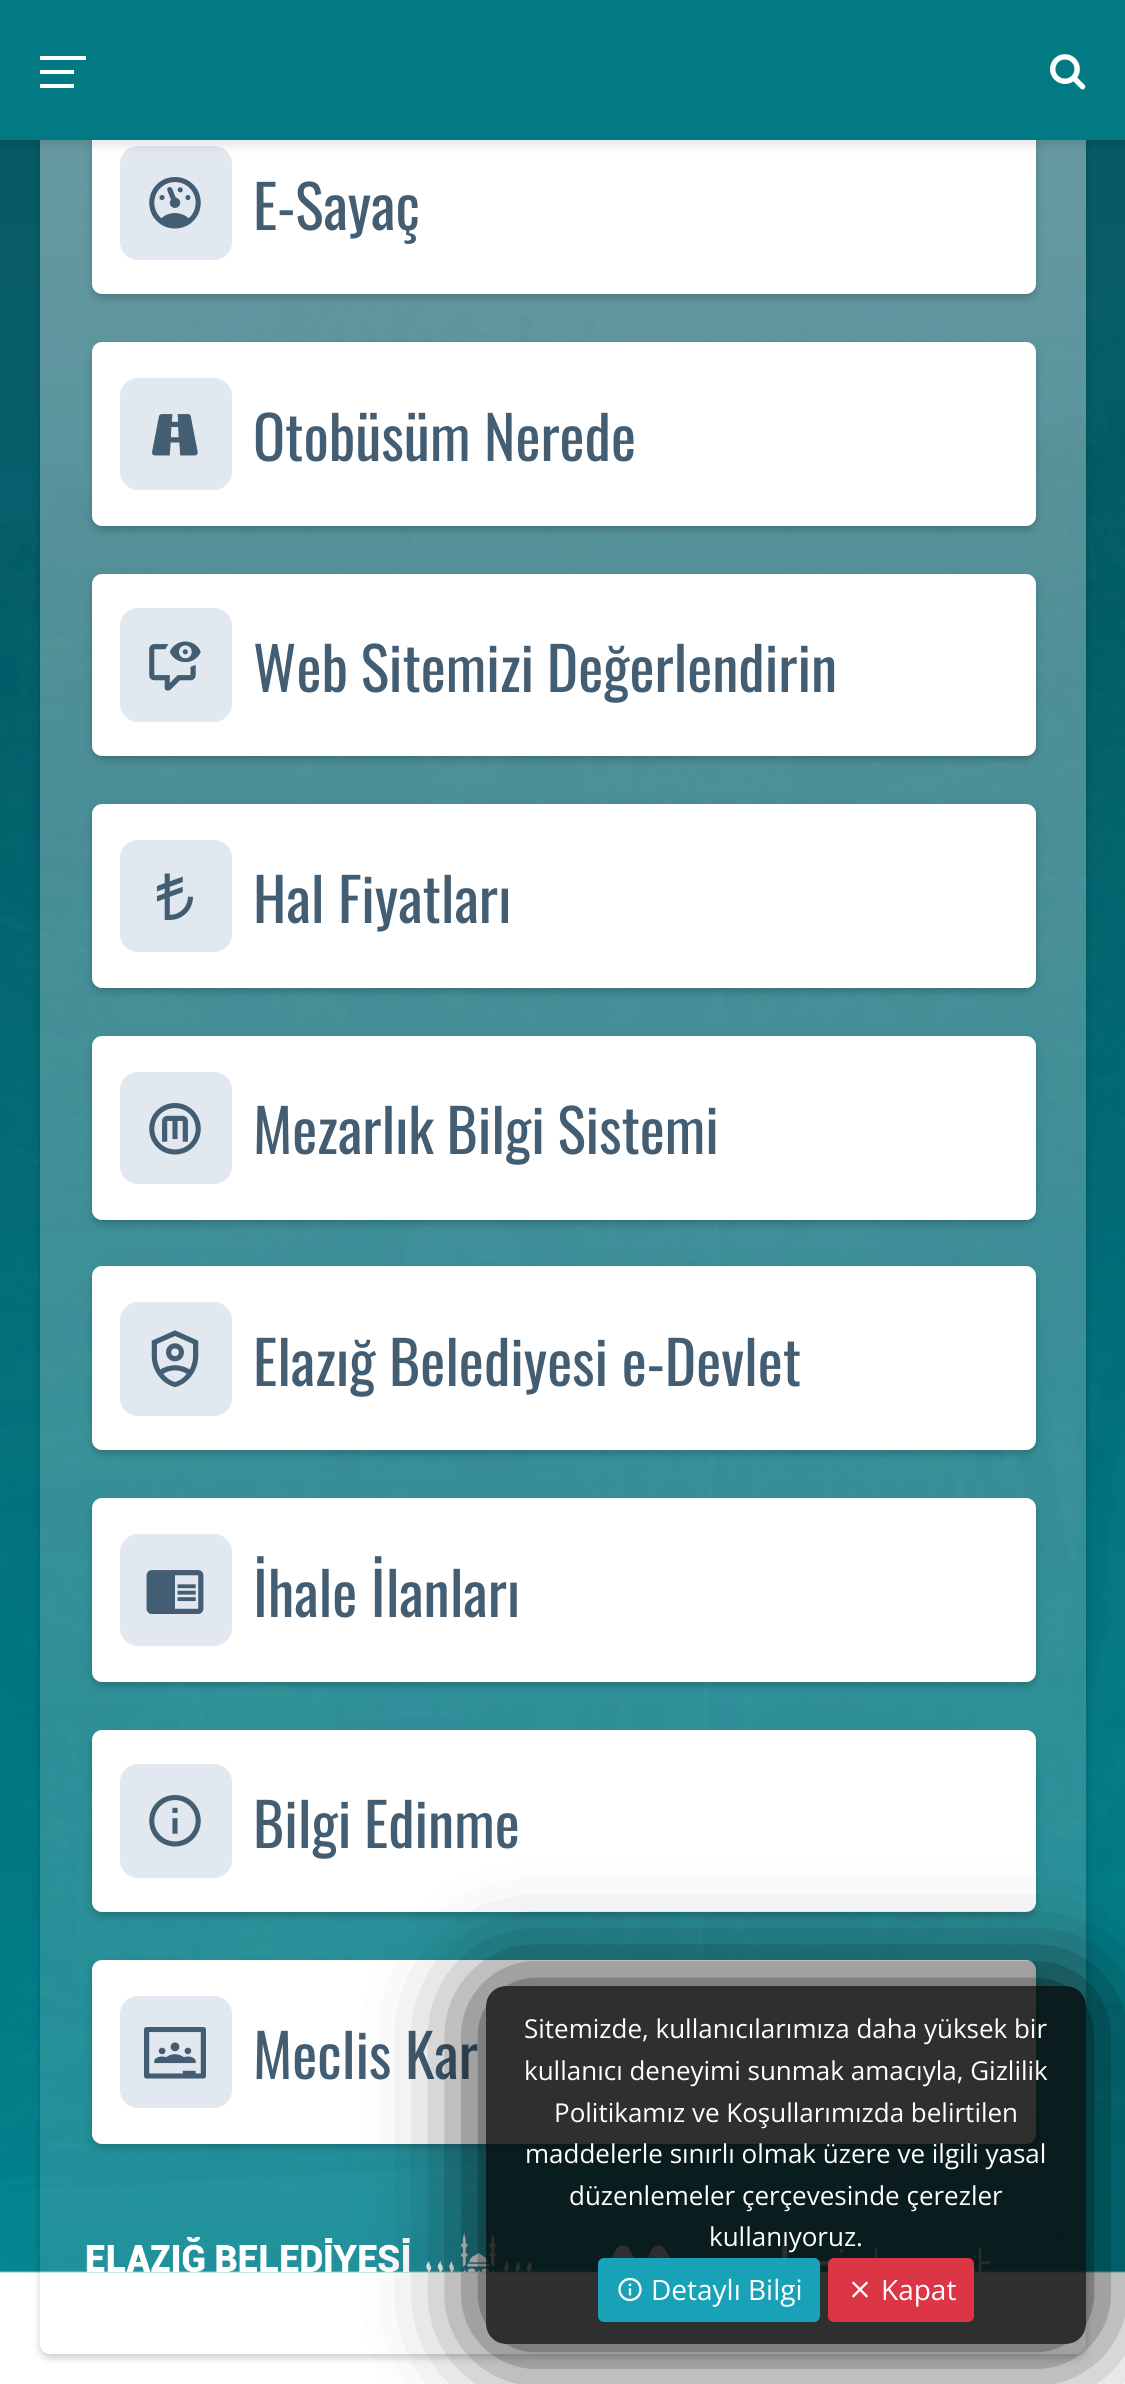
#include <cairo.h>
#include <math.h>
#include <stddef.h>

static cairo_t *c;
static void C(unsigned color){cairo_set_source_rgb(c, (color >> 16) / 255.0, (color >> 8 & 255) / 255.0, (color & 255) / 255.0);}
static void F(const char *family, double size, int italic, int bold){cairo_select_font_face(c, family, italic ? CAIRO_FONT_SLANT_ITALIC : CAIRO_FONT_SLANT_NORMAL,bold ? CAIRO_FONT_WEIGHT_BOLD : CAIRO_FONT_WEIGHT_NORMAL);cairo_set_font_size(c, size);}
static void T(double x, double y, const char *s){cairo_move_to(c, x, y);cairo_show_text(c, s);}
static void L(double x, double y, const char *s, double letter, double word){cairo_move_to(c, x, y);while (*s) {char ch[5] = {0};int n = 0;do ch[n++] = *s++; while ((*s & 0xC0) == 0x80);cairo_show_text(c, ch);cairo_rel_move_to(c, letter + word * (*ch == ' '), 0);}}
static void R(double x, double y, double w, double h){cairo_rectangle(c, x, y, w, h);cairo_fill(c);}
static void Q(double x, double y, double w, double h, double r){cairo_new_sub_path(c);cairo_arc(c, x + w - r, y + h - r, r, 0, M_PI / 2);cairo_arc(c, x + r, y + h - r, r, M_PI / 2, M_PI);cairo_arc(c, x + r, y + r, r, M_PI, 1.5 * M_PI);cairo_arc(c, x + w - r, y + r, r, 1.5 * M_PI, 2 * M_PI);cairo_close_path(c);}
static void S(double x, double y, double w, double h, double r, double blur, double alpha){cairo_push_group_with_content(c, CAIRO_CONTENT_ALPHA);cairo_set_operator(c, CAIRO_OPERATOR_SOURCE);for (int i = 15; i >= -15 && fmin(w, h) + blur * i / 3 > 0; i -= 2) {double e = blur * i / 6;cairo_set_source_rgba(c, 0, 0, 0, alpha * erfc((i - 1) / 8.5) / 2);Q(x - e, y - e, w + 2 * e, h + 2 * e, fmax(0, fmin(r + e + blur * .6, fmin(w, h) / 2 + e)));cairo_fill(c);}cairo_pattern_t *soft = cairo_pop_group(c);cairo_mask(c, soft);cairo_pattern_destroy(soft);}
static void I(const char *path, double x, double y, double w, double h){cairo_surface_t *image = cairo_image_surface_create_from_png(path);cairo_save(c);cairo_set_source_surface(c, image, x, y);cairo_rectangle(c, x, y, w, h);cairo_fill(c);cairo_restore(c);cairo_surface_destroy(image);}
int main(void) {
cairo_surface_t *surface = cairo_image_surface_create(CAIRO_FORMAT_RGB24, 1125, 2384);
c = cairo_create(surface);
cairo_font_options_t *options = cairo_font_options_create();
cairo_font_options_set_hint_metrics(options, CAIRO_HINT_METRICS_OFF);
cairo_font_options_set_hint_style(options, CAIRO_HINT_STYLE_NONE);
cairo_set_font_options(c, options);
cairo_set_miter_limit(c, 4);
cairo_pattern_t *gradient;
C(0xffffff);
cairo_paint(c);
I("1.png",0,140,1125,2133);
cairo_save(c);
cairo_set_fill_rule(c,CAIRO_FILL_RULE_EVEN_ODD);
cairo_new_path(c);
cairo_move_to(c,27,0);
cairo_line_to(c,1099,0);
cairo_line_to(c,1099,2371);
cairo_line_to(c,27,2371);
cairo_close_path(c);
cairo_move_to(c,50,-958);
cairo_line_to(c,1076,-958);
cairo_curve_to(c,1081.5,-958,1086,-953.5,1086,-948);
cairo_line_to(c,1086,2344);
cairo_curve_to(c,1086,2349.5,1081.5,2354,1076,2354);
cairo_line_to(c,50,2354);
cairo_curve_to(c,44.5,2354,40,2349.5,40,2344);
cairo_line_to(c,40,-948);
cairo_curve_to(c,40,-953.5,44.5,-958,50,-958);
cairo_close_path(c);
cairo_clip(c);
C(0x000000);
S(40,-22,1046,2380,10,4,.2);
cairo_restore(c);
gradient = cairo_pattern_create_linear(563,-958,563,2354);
cairo_pattern_add_color_stop_rgba(gradient,0,1,1,1,.55);
cairo_pattern_add_color_stop_rgba(gradient,.5,1,1,1,.3);
cairo_pattern_add_color_stop_rgba(gradient,1,1,1,1,.1);
cairo_set_source(c,gradient);
cairo_pattern_destroy(gradient);
Q(40,-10,1046,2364,10);
cairo_fill(c);
C(0x000000);
S(92,114,944,184,10,4,.2);
C(0xffffff);
Q(92,110,944,184,10);
cairo_fill(c);
C(0xe2e8f0);
Q(119,145,114,116,19);
cairo_fill_preserve(c);
C(0xffffff);
cairo_stroke(c);
C(0x000000);
S(-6,-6,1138,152,0,5,.1);
C(0x017a83);
R(0,0,1125,140);
C(0xffffff);
R(40,70,34,4);
R(40,56,46,4);
R(40,84,34,4);
I("2.png",1050,54,36,36);
I("3.png",149,177,52,52);
F("Oswald",59.5,0,0);
C(0x435d73);
T(253,230,"E-Sayaç");
C(0x000000);
S(92,346,944,184,10,4,.2);
C(0xffffff);
Q(92,342,944,184,10);
cairo_fill(c);
C(0xe2e8f0);
Q(119,377,114,114,19);
cairo_fill_preserve(c);
C(0xffffff);
cairo_stroke(c);
I("4.png",152,414,46,42);
C(0x435d73);
T(253,461,"Otobüsüm Nerede");
C(0x000000);
S(92,578,944,182,10,4,.2);
C(0xffffff);
Q(92,574,944,182,10);
cairo_fill(c);
C(0xe2e8f0);
Q(119,607,114,116,19);
cairo_fill_preserve(c);
C(0xffffff);
cairo_stroke(c);
I("5.png",149,641,52,50);
C(0x435d73);
L(253,692,"Web Sitemizi Değerlendirin",0,-1);
C(0x000000);
S(92,808,944,184,10,4,.2);
C(0xffffff);
Q(92,804,944,184,10);
cairo_fill(c);
C(0xe2e8f0);
Q(119,839,114,114,19);
cairo_fill_preserve(c);
C(0xffffff);
cairo_stroke(c);
I("6.png",156,873,37,47);
C(0x435d73);
T(253,923,"Hal Fiyatları");
C(0x000000);
S(92,1040,944,184,10,4,.2);
C(0xffffff);
Q(92,1036,944,184,10);
cairo_fill(c);
C(0xe2e8f0);
Q(119,1071,114,114,19);
cairo_fill_preserve(c);
C(0xffffff);
cairo_stroke(c);
I("7.png",149,1103,52,52);
C(0x435d73);
L(253,1154,"Mezarlık Bilgi Sistemi",0,-1);
C(0x000000);
S(92,1270,944,184,10,4,.2);
C(0xffffff);
Q(92,1266,944,184,10);
cairo_fill(c);
C(0xe2e8f0);
Q(119,1301,114,116,19);
cairo_fill_preserve(c);
C(0xffffff);
cairo_stroke(c);
I("8.png",151,1330,48,58);
C(0x435d73);
T(253,1386,"Elazığ Belediyesi e-Devlet");
C(0x000000);
S(92,1502,944,184,10,4,.2);
C(0xffffff);
Q(92,1498,944,184,10);
cairo_fill(c);
C(0xe2e8f0);
Q(119,1533,114,114,19);
cairo_fill_preserve(c);
C(0xffffff);
cairo_stroke(c);
I("9.png",146,1570,58,44);
C(0x435d73);
T(253,1617,"İhale İlanları");
C(0x000000);
S(92,1734,944,182,10,4,.2);
C(0xffffff);
Q(92,1730,944,182,10);
cairo_fill(c);
C(0xe2e8f0);
Q(119,1763,114,116,19);
cairo_fill_preserve(c);
C(0xffffff);
cairo_stroke(c);
I("10.png",149,1795,52,52);
C(0x435d73);
L(253,1848,"Bilgi Edinme",0,-1);
C(0x000000);
S(92,1964,944,184,10,4,.2);
C(0xffffff);
Q(92,1960,944,184,10);
cairo_fill(c);
C(0xe2e8f0);
Q(119,1995,114,114,19);
cairo_fill_preserve(c);
C(0xffffff);
cairo_stroke(c);
I("11.png",144,2027,62,52);
C(0x435d73);
T(253,2079,"Meclis Kar");
I("12.png",86,2232,446,41);
I("13.png",611,2245,380,28);
cairo_save(c);
cairo_set_fill_rule(c,CAIRO_FILL_RULE_EVEN_ODD);
cairo_new_path(c);
cairo_move_to(c,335,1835);
cairo_line_to(c,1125,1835);
cairo_line_to(c,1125,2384);
cairo_line_to(c,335,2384);
cairo_close_path(c);
cairo_move_to(c,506,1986);
cairo_line_to(c,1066,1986);
cairo_curve_to(c,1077,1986,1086,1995,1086,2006);
cairo_line_to(c,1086,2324);
cairo_curve_to(c,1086,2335,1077,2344,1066,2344);
cairo_line_to(c,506,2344);
cairo_curve_to(c,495,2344,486,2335,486,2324);
cairo_line_to(c,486,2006);
cairo_curve_to(c,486,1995,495,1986,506,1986);
cairo_close_path(c);
cairo_clip(c);
C(0x000000);
S(486,1986,600,358,20,50,1);
cairo_restore(c);
cairo_set_source_rgba(c,0.02,0.02,0.02,0.83);
Q(486,1986,600,358,20);
cairo_fill(c);
F("Open Sans",26,0,0);
C(0xffffff);
T(524,2038,"Sitemizde, kullanıcılarımıza daha yüksek bir");
T(524,2080,"kullanıcı deneyimi sunmak amacıyla, Gizlilik");
T(554,2122,"Politikamız ve Koşullarımızda belirtilen");
T(525,2163,"maddelerle sınırlı olmak üzere ve ilgili yasal");
T(569,2205,"düzenlemeler çerçevesinde çerezler");
T(709,2246,"kullanıyoruz.");
C(0x17a2b8);
Q(599,2259,220,62,5);
cairo_fill_preserve(c);
cairo_stroke(c);
I("14.png",618,2277,24,25);
F("Open Sans",28,0,0);
C(0xffffff);
T(651,2300,"Detaylı Bilgi");
C(0xdc3545);
Q(829,2259,144,62,5);
cairo_fill_preserve(c);
cairo_stroke(c);
I("15.png",852,2281,16,17);
C(0xffffff);
T(881,2300,"Kapat");
cairo_surface_write_to_png(surface, "o.png");
cairo_font_options_destroy(options);
cairo_destroy(c);
cairo_surface_destroy(surface);
return 0;
}
